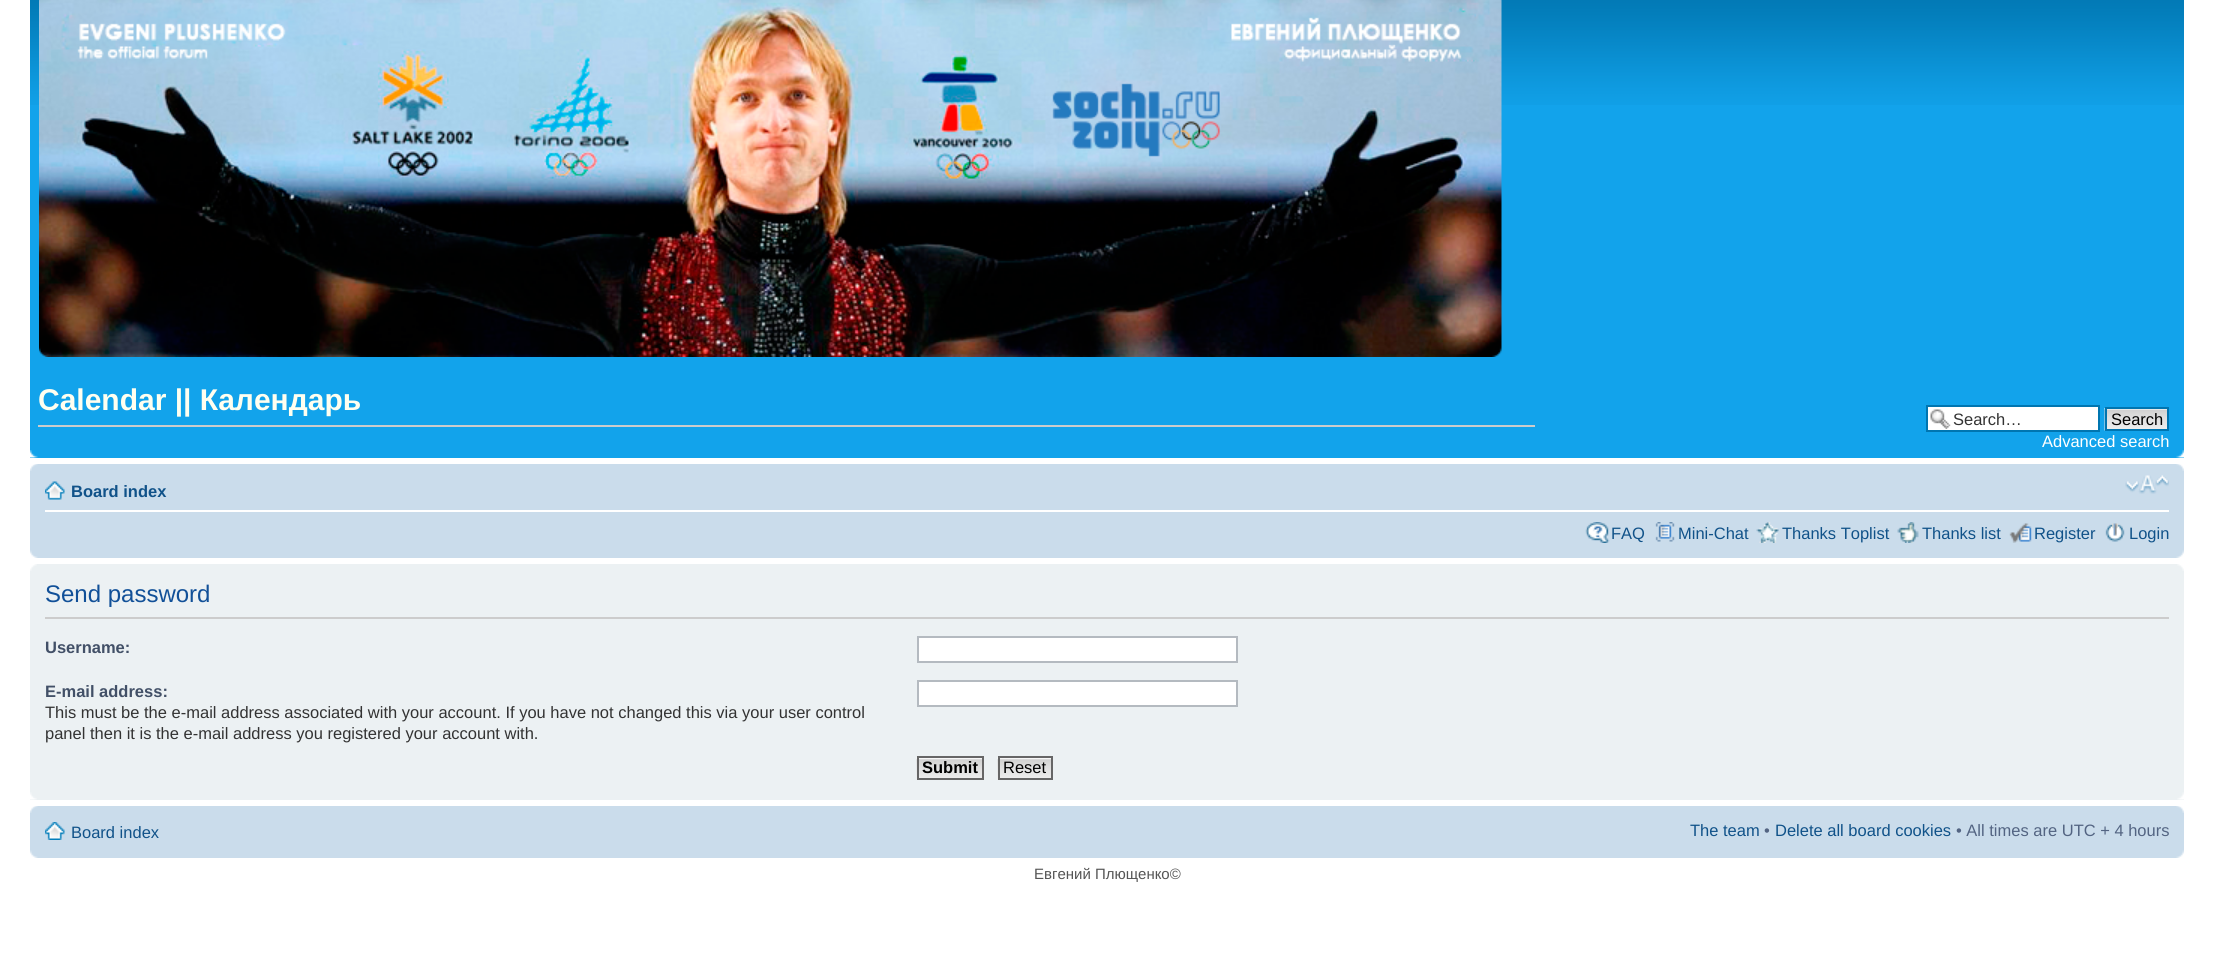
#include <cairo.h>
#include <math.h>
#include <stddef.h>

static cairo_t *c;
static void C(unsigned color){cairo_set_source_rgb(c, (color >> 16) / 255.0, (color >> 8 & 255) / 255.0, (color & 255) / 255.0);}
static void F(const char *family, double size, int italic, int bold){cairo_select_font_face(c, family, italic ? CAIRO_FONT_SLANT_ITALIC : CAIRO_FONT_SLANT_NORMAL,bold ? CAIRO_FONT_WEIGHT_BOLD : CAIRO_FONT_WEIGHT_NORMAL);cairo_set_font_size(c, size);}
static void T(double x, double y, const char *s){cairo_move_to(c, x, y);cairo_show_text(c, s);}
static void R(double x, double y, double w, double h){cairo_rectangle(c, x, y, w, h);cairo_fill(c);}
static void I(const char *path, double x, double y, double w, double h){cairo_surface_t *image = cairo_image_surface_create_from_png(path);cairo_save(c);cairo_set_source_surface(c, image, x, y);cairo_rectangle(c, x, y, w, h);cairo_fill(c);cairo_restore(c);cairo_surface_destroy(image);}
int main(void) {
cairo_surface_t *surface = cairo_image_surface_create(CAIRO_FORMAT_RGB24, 2213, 967);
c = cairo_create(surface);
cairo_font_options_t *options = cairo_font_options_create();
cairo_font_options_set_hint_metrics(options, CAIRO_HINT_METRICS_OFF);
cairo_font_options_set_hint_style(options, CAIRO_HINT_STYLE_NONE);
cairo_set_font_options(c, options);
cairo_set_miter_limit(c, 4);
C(0xffffff);
cairo_paint(c);
C(0x12a3eb);
R(30,105,2154,353);
I("1.png",30,0,2154,105);
I("2.png",39,0,1463,357);
F("Liberation Sans",30,0,1);
C(0xfffff0);
T(38,410,"Calendar || Календарь");
C(0xcccccc);
R(38,425,1497,2);
C(0xffffff);
R(1928,407,170,23);
I("3.png",1930,409,21,20);
cairo_rectangle(c,1927,406,172,25);
C(0x0075b0);
cairo_stroke(c);
F("Liberation Sans",16.5,0,0);
C(0x333333);
T(1953,425,"Search…");
I("4.png",2104,408,63,23);
cairo_rectangle(c,2106,408,62,22);
C(0x0075b0);
cairo_stroke(c);
C(0x000000);
T(2111,425,"Search");
C(0xffffff);
T(2042,447,"Advanced search");
I("5.png",30,450,8,8);
I("6.png",2176,450,8,8);
C(0xcadceb);
R(30,464,2154,94);
I("7.png",30,464,8,7);
I("8.png",2176,464,8,7);
C(0xffffff);
R(45,510,2124,2);
I("9.png",45,481,20,19);
F("Liberation Sans",16.5,0,1);
C(0x105289);
T(71,497,"Board index");
I("10.png",2125,475,44,19);
I("11.png",1585,522,25,21);
F("Liberation Sans",16.5,0,0);
T(1611,539,"FAQ");
I("12.png",1655,522,20,20);
T(1678,539,"Mini-Chat");
I("13.png",1756,522,23,21);
T(1782,539,"Thanks Toplist");
I("14.png",1897,522,22,21);
T(1922,539,"Thanks list");
I("15.png",2009,523,23,20);
T(2034,539,"Register");
I("16.png",2105,523,20,19);
T(2129,539,"Login");
I("17.png",30,550,8,8);
I("18.png",2176,550,8,8);
C(0xecf1f3);
R(30,564,2154,236);
I("19.png",30,564,7,7);
I("20.png",2177,564,7,7);
C(0xcccccc);
R(45,617,2124,2);
F("Liberation Sans",24,0,0);
C(0x115098);
T(45,602,"Send password");
F("Liberation Sans",16.5,0,1);
C(0x425067);
T(45,653,"Username:");
C(0xffffff);
cairo_rectangle(c,918,637,319,25);
cairo_fill_preserve(c);
C(0xb4bac0);
cairo_stroke(c);
C(0x425067);
T(45,697,"E-mail address:");
F("Liberation Sans",16.5,0,0);
C(0x333333);
T(45,718,"This must be the e-mail address associated with your account. If you have not changed this via your user control");
T(45,739,"panel then it is the e-mail address you registered your account with.");
C(0xffffff);
cairo_rectangle(c,918,681,319,25);
cairo_fill_preserve(c);
C(0xb4bac0);
cairo_stroke(c);
I("21.png",916,757,66,23);
cairo_rectangle(c,918,757,65,22);
C(0x666666);
cairo_stroke(c);
F("Liberation Sans",16.5,0,1);
C(0x000000);
T(922,773,"Submit");
I("22.png",997,757,54,23);
cairo_rectangle(c,999,757,53,22);
C(0x666666);
cairo_stroke(c);
F("Liberation Sans",16.5,0,0);
C(0x000000);
T(1003,773,"Reset");
I("23.png",30,792,7,8);
I("24.png",2177,792,7,8);
C(0xcadceb);
R(30,806,2154,52);
I("7.png",30,806,8,7);
I("8.png",2176,806,8,7);
I("25.png",45,822,20,18);
C(0x105289);
T(71,838,"Board index");
T(1690,836,"The team");
C(0x536482);
T(1764,836,"•");
C(0x105289);
T(1775,836,"Delete all board cookies");
C(0x536482);
T(1956,836,"• All times are UTC + 4 hours");
I("17.png",30,850,8,8);
I("18.png",2176,850,8,8);
F("Liberation Sans",15,0,0);
C(0x555555);
T(1034,879,"Евгений Плющенко©");
cairo_surface_write_to_png(surface, "o.png");
cairo_font_options_destroy(options);
cairo_destroy(c);
cairo_surface_destroy(surface);
return 0;
}
